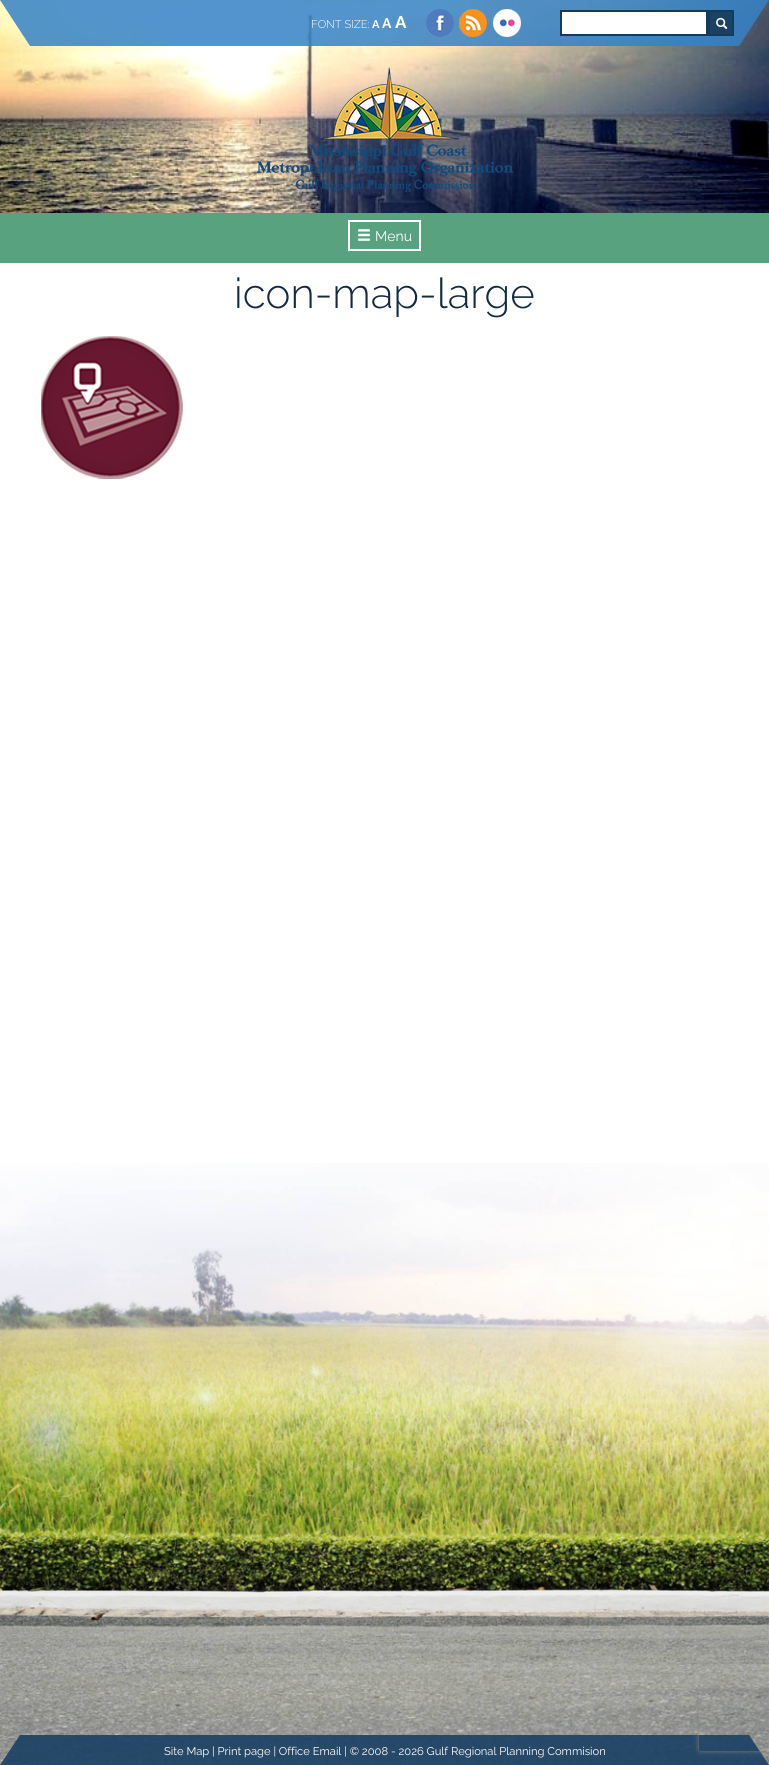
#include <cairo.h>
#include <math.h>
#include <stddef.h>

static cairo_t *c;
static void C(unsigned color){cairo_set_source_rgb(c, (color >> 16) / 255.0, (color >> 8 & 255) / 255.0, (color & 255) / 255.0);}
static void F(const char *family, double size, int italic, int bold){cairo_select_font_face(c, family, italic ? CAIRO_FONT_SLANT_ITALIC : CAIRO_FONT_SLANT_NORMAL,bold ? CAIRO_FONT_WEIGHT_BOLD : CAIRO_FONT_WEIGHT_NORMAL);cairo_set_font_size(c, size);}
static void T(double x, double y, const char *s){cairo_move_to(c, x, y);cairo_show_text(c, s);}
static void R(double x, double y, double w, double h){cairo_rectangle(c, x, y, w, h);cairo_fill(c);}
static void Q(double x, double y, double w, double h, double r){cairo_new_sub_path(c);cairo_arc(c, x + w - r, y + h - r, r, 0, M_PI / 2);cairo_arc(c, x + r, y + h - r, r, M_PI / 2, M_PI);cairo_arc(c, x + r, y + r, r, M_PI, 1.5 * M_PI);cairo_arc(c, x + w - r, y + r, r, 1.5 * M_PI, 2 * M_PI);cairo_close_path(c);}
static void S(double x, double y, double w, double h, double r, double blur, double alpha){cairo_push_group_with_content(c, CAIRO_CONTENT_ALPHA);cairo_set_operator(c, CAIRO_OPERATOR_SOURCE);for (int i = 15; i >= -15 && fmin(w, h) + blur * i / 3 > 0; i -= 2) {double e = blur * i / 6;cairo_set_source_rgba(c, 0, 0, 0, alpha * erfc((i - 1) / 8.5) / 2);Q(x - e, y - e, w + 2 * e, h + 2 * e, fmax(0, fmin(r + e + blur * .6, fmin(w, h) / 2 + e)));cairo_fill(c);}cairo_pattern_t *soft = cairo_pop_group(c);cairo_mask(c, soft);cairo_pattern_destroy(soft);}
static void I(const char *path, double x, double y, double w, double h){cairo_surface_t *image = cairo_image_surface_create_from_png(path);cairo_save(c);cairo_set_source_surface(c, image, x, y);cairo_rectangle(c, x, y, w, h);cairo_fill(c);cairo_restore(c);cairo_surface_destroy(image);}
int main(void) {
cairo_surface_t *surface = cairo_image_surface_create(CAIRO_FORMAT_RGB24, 769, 1765);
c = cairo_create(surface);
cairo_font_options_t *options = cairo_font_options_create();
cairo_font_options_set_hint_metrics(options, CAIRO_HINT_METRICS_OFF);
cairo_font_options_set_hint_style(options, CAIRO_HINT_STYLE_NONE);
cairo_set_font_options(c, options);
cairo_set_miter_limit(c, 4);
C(0xffffff);
cairo_paint(c);
I("1.png",0,1163,769,602);
I("2.png",0,0,769,213);
cairo_set_source_rgba(c,0.208,0.506,0.78,0.85);
cairo_new_path(c);
cairo_move_to(c,0,0);
cairo_line_to(c,769,0);
cairo_line_to(c,739,46);
cairo_line_to(c,30,46);
cairo_close_path(c);
cairo_fill(c);
F("Raleway Light",11.2,0,0);
C(0xffffff);
T(311,28,"FONT SIZE:");
F("Raleway",11.2,0,1);
T(372,28,"A");
F("Raleway",14,0,1);
T(382,28,"A");
F("Raleway",17,0,1);
T(395,28,"A");
I("3.png",426,9,28,28);
I("4.png",459,9,28,28);
I("5.png",493,9,28,28);
cairo_rectangle(c,561,11,146,24);
cairo_fill_preserve(c);
C(0x133b5a);
cairo_stroke(c);
C(0x1b4164);
cairo_rectangle(c,709,11,24,24);
cairo_fill_preserve(c);
C(0x133b5a);
cairo_stroke(c);
I("6.png",716,17,12,12);
I("7.png",257,67,256,125);
C(0x59a280);
R(0,213,769,50);
cairo_rectangle(c,349,221,71,29);
C(0xffffff);
cairo_stroke(c);
I("8.png",358,229,12,12);
F("Raleway",14,0,0);
T(375,241,"Menu");
F("Raleway Light",42,0,0);
C(0x132a3f);
T(234,308,"icon-map-large");
I("9.png",41,336,142,143);
cairo_set_source_rgba(c,0.106,0.255,0.392,0.9);
cairo_new_path(c);
cairo_move_to(c,769,1765);
cairo_line_to(c,0,1765);
cairo_line_to(c,20,1735);
cairo_line_to(c,749,1735);
cairo_close_path(c);
cairo_fill(c);
F("Raleway",11.2,0,0);
C(0xffffff);
T(164,1755,"Site Map | Print page | Office Email | © 2008 - 2026 Gulf Regional Planning Commision");
cairo_save(c);
cairo_set_fill_rule(c,CAIRO_FILL_RULE_EVEN_ODD);
cairo_new_path(c);
cairo_move_to(c,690,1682);
cairo_line_to(c,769,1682);
cairo_line_to(c,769,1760);
cairo_line_to(c,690,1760);
cairo_close_path(c);
cairo_move_to(c,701,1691);
cairo_line_to(c,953,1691);
cairo_curve_to(c,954,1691,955,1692,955,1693);
cairo_line_to(c,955,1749);
cairo_curve_to(c,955,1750,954,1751,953,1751);
cairo_line_to(c,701,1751);
cairo_curve_to(c,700,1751,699,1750,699,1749);
cairo_line_to(c,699,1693);
cairo_curve_to(c,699,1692,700,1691,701,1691);
cairo_close_path(c);
cairo_clip(c);
C(0x808080);
S(699,1691,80,60,2,2.5,1);
cairo_restore(c);
cairo_surface_write_to_png(surface, "o.png");
cairo_font_options_destroy(options);
cairo_destroy(c);
cairo_surface_destroy(surface);
return 0;
}
